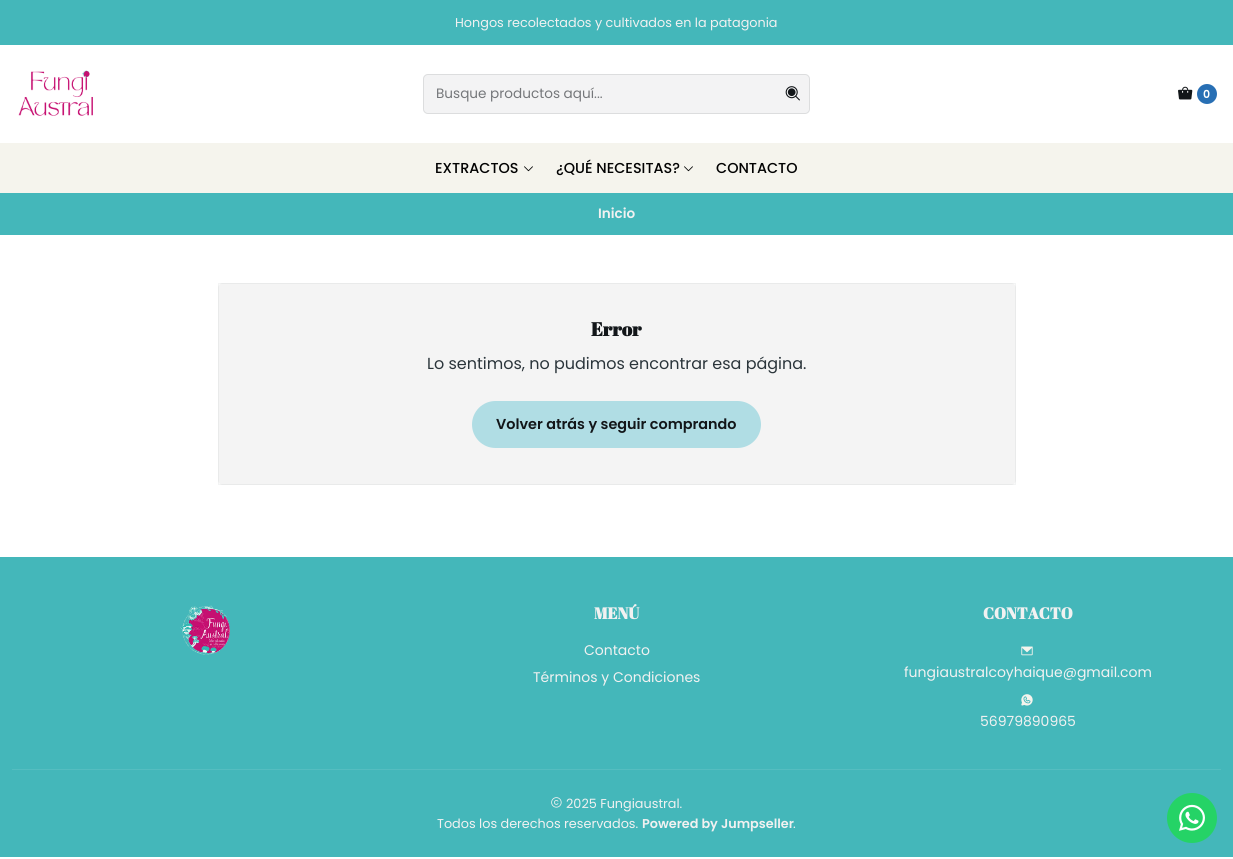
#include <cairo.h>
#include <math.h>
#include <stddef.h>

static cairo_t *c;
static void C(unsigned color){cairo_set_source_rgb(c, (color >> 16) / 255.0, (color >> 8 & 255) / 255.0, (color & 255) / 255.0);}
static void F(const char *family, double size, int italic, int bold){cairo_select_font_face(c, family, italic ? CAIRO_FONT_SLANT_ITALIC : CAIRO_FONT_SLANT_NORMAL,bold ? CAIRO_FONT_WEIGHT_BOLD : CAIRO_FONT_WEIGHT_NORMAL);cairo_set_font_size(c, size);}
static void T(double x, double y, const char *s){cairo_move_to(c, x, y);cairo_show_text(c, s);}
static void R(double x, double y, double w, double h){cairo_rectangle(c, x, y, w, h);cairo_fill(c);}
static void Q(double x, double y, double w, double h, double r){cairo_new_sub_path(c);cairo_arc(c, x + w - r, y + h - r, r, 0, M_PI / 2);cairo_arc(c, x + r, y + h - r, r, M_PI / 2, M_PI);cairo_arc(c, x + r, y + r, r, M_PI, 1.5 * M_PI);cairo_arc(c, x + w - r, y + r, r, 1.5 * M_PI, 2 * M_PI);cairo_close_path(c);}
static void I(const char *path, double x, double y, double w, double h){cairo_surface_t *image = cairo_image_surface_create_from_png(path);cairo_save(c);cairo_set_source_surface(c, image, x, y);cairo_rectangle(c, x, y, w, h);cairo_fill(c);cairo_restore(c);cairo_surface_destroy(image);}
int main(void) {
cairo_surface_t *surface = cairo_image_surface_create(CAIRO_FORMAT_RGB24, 1233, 859);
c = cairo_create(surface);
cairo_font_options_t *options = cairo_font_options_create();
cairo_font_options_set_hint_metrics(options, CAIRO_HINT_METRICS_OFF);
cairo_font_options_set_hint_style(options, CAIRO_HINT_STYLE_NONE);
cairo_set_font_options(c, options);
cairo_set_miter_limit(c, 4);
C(0xffffff);
cairo_paint(c);
C(0x44b7ba);
R(0,0,1233,45);
F("Poppins",12.8,0,0);
C(0xf1f1f1);
T(455,27,"Hongos recolectados y cultivados en la patagonia");
I("1.png",18,70,75,46);
C(0xf3f3f4);
Q(423,74,387,40,5);
cairo_fill(c);
Q(423.5,74.5,386,39,4.5);
cairo_set_source_rgba(c,0.071,0.086,0.098,0.1);
cairo_set_line_width(c,1);
cairo_stroke(c);
F("Poppins",13.6,0,0);
C(0x75777a);
T(436,98,"Busque productos aquí...");
I("2.png",785,86,15,15);
I("3.png",1178,86,15,14);
C(0x286fb4);
cairo_arc(c,1207,94,10,0,2 * M_PI);
cairo_fill(c);
F("Poppins SemiBold",11,0,0);
C(0xffffff);
T(1203,98,"0");
C(0xf5f4ed);
R(0,143,1233,50);
F("Poppins Medium",14.4,0,0);
C(0x020202);
T(435,173,"EXTRACTOS");
I("4.png",524,166,9,6);
T(556,173,"¿QUÉ NECESITAS?");
I("4.png",684,166,9,6);
T(716,173,"CONTACTO");
C(0x44b7ba);
R(0,193,1233,42);
F("Poppins SemiBold",13.6,0,0);
C(0xf1f1f1);
T(598,218,"Inicio");
C(0xf4f4f4);
Q(218,283,798,202,5);
cairo_fill(c);
cairo_rectangle(c,218.5,283.5,797,201);
cairo_set_source_rgba(c,0.071,0.086,0.098,0.05);
cairo_stroke(c);
F("Abril Fatface",19,0,1);
C(0x121619);
T(591,336,"Error");
F("Poppins",16,0,0);
C(0x2b353b);
T(427,369,"Lo sentimos, no pudimos encontrar esa página.");
C(0xb0dde4);
Q(472,401,289,47,23.5);
cairo_fill(c);
F("Poppins SemiBold",14.4,0,0);
C(0x121619);
T(496,429,"Volver atrás y seguir comprando");
C(0x44b7ba);
R(0,557,1233,300);
I("5.png",180,605,50,50);
F("Abril Fatface",16,0,1);
C(0xf1f1f1);
T(594,619,"MENÚ");
F("Poppins",14,0,0);
T(584,655,"Contacto");
T(533,682,"Términos y Condiciones");
F("Abril Fatface",16,0,1);
T(983,619,"CONTACTO");
I("6.png",1021,646,12,10);
F("Poppins",14,0,0);
T(904,677,"fungiaustralcoyhaique@gmail.com");
I("7.png",1021,694,12,12);
T(980,726,"56979890965");
C(0x55bdc0);
R(12,769,1209,1);
I("8.png",551,797,11,11);
F("Poppins",12.8,0,0);
C(0xf1f1f1);
T(566,808,"2025 Fungiaustral.");
T(437,828,"Todos los derechos reservados.");
F("Poppins SemiBold",12.8,0,0);
T(642,828,"Powered by Jumpseller");
F("Poppins",12.8,0,0);
T(793,828,".");
C(0x25d366);
cairo_new_path(c);
cairo_arc(c,1192,818,25,0,2 * M_PI);
cairo_fill(c);
I("9.png",1179,804,26,27);
cairo_surface_write_to_png(surface, "o.png");
cairo_font_options_destroy(options);
cairo_destroy(c);
cairo_surface_destroy(surface);
return 0;
}
